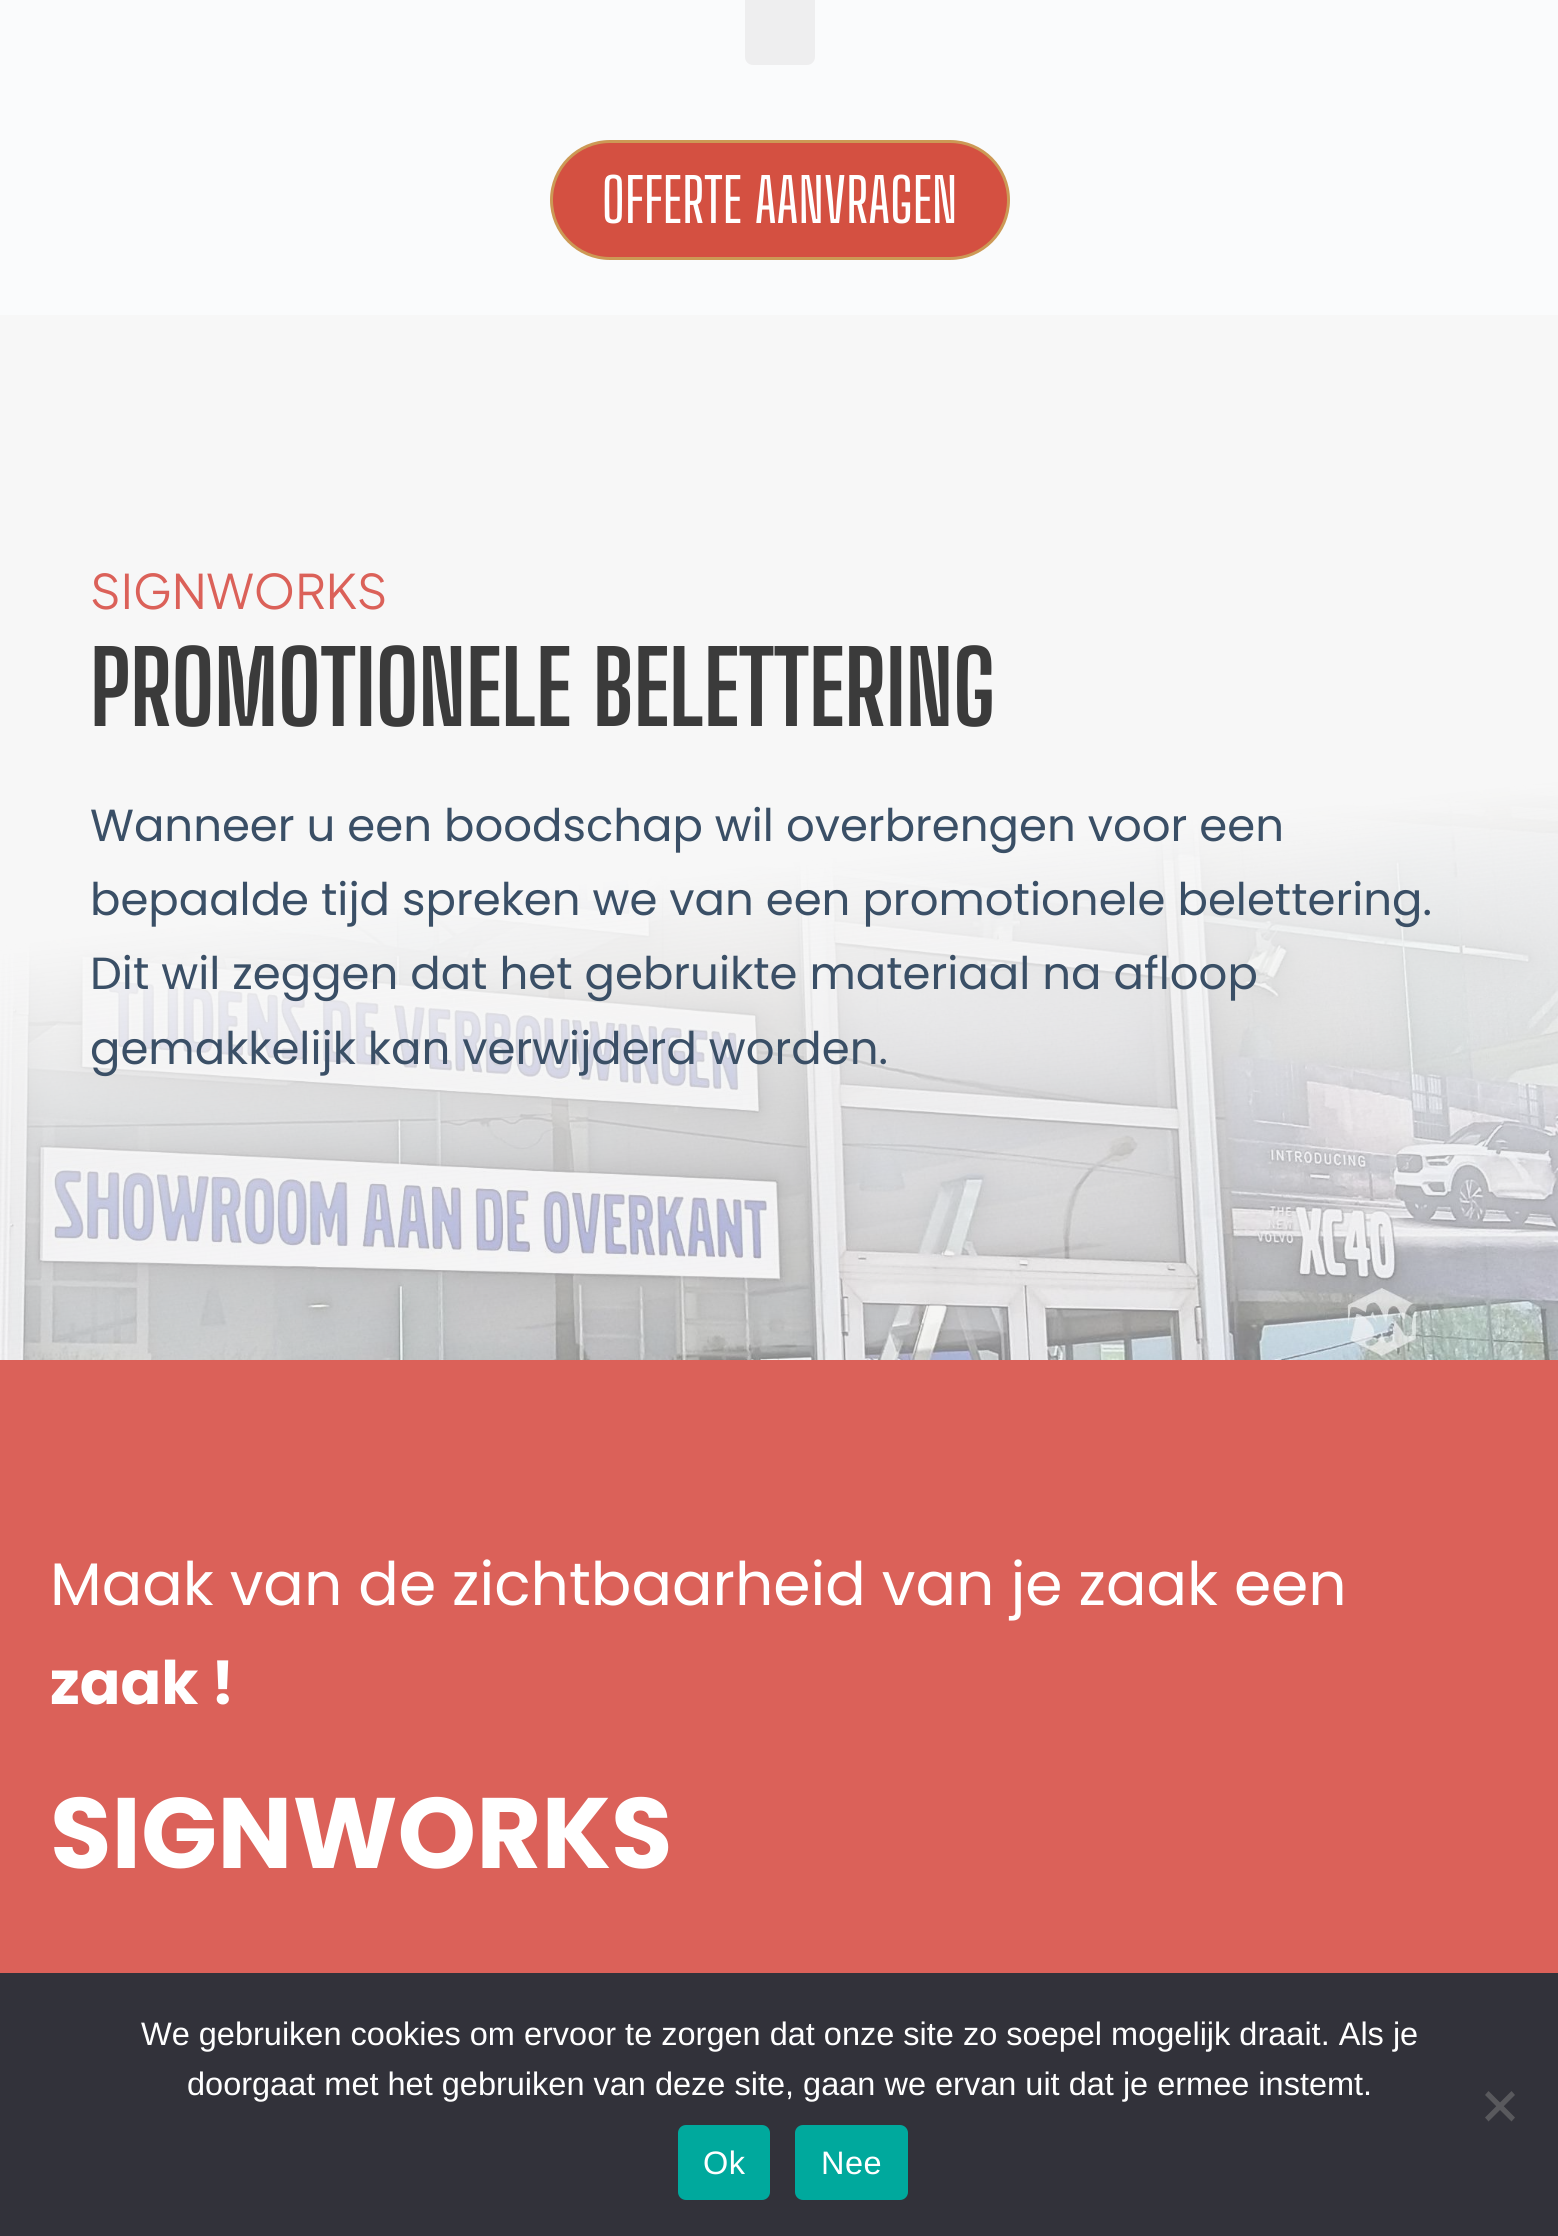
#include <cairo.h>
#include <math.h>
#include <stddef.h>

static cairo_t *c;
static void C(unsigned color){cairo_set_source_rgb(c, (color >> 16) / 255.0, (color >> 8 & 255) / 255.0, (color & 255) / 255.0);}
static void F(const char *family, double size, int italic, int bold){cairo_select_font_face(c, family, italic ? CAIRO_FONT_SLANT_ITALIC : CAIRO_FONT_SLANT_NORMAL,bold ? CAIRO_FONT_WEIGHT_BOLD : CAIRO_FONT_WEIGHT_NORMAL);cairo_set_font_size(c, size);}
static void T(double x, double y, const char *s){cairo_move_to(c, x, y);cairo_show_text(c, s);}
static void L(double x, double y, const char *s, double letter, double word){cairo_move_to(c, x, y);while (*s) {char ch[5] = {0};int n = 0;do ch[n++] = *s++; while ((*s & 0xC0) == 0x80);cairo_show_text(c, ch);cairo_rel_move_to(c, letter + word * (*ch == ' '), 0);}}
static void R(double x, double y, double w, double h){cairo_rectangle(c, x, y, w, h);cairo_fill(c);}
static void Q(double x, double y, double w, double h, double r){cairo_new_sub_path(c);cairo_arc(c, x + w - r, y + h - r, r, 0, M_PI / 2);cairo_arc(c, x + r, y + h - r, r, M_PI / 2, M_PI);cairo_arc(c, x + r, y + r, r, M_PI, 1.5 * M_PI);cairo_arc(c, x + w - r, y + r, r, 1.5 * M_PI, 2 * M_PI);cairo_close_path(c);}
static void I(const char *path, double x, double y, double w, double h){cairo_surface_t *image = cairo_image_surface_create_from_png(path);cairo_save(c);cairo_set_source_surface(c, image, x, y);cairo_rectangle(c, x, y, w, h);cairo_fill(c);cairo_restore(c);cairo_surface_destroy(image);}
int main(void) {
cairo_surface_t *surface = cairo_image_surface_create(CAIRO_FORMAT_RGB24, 1558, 2236);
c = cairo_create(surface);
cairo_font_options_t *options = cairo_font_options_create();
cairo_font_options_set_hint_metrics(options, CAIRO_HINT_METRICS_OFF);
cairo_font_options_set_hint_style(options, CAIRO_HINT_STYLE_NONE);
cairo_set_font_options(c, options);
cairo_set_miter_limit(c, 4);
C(0xfafbfc);
cairo_paint(c);
C(0xeeeeef);
Q(745,-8,70,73,8);
cairo_fill(c);
C(0xd45041);
Q(551.5,141.5,457,117,58.5);
cairo_fill_preserve(c);
C(0xcc9955);
cairo_set_line_width(c,3);
cairo_stroke(c);
F("Big Shoulders Display Medium",60,0,0);
C(0xffffff);
L(602,223,"OFFERTE AANVRAGEN",.4,0);
I("1.png",0,315,1558,1045);
F("Plus Jakarta Sans",47.5,0,0);
C(0xdb6159);
T(90,609,"SIGNWORKS");
F("Big Shoulders Display",100,0,1);
C(0x3b3b3b);
T(90,726,"PROMOTIONELE BELETTERING");
F("Poppins",45,0,0);
C(0x3a4f66);
T(90,841,"Wanneer u een boodschap wil overbrengen voor een");
T(90,915,"bepaalde tijd spreken we van een promotionele belettering.");
T(90,989,"Dit wil zeggen dat het gebruikte materiaal na afloop");
T(90,1064,"gemakkelijk kan verwijderd worden.");
C(0xdb6159);
R(0,1360,1558,613);
F("Poppins",60,0,0);
C(0xffffff);
T(50,1605,"Maak van de zichtbaarheid van je zaak een");
F("Poppins",60,0,1);
T(50,1704,"zaak !");
F("Poppins",100,0,1);
T(50,1868,"SIGNWORKS");
C(0x32323a);
R(0,1973,1558,263);
F("Liberation Sans",32.5,0,0);
C(0xffffff);
T(141,2045,"We gebruiken cookies om ervoor te zorgen dat onze site zo soepel mogelijk draait. Als je");
T(187,2095,"doorgaat met het gebruiken van deze site, gaan we ervan uit dat je ermee instemt.");
C(0x59595d);
cairo_new_path(c);
cairo_move_to(c,1511.5,2091);
cairo_line_to(c,1515,2095);
cairo_line_to(c,1488.5,2121.5);
cairo_line_to(c,1485,2117.5);
cairo_close_path(c);
cairo_fill(c);
cairo_new_path(c);
cairo_move_to(c,1485,2095);
cairo_line_to(c,1488.5,2091);
cairo_line_to(c,1515,2117.5);
cairo_line_to(c,1511.5,2121.5);
cairo_close_path(c);
cairo_fill(c);
C(0x00a99d);
Q(678,2125,92,75,8);
cairo_fill(c);
C(0xffffff);
L(703,2174,"Ok",.5,0);
C(0x00a99d);
Q(795,2125,113,75,8);
cairo_fill(c);
C(0xffffff);
L(821,2174,"Nee",.5,0);
cairo_surface_write_to_png(surface, "o.png");
cairo_font_options_destroy(options);
cairo_destroy(c);
cairo_surface_destroy(surface);
return 0;
}
